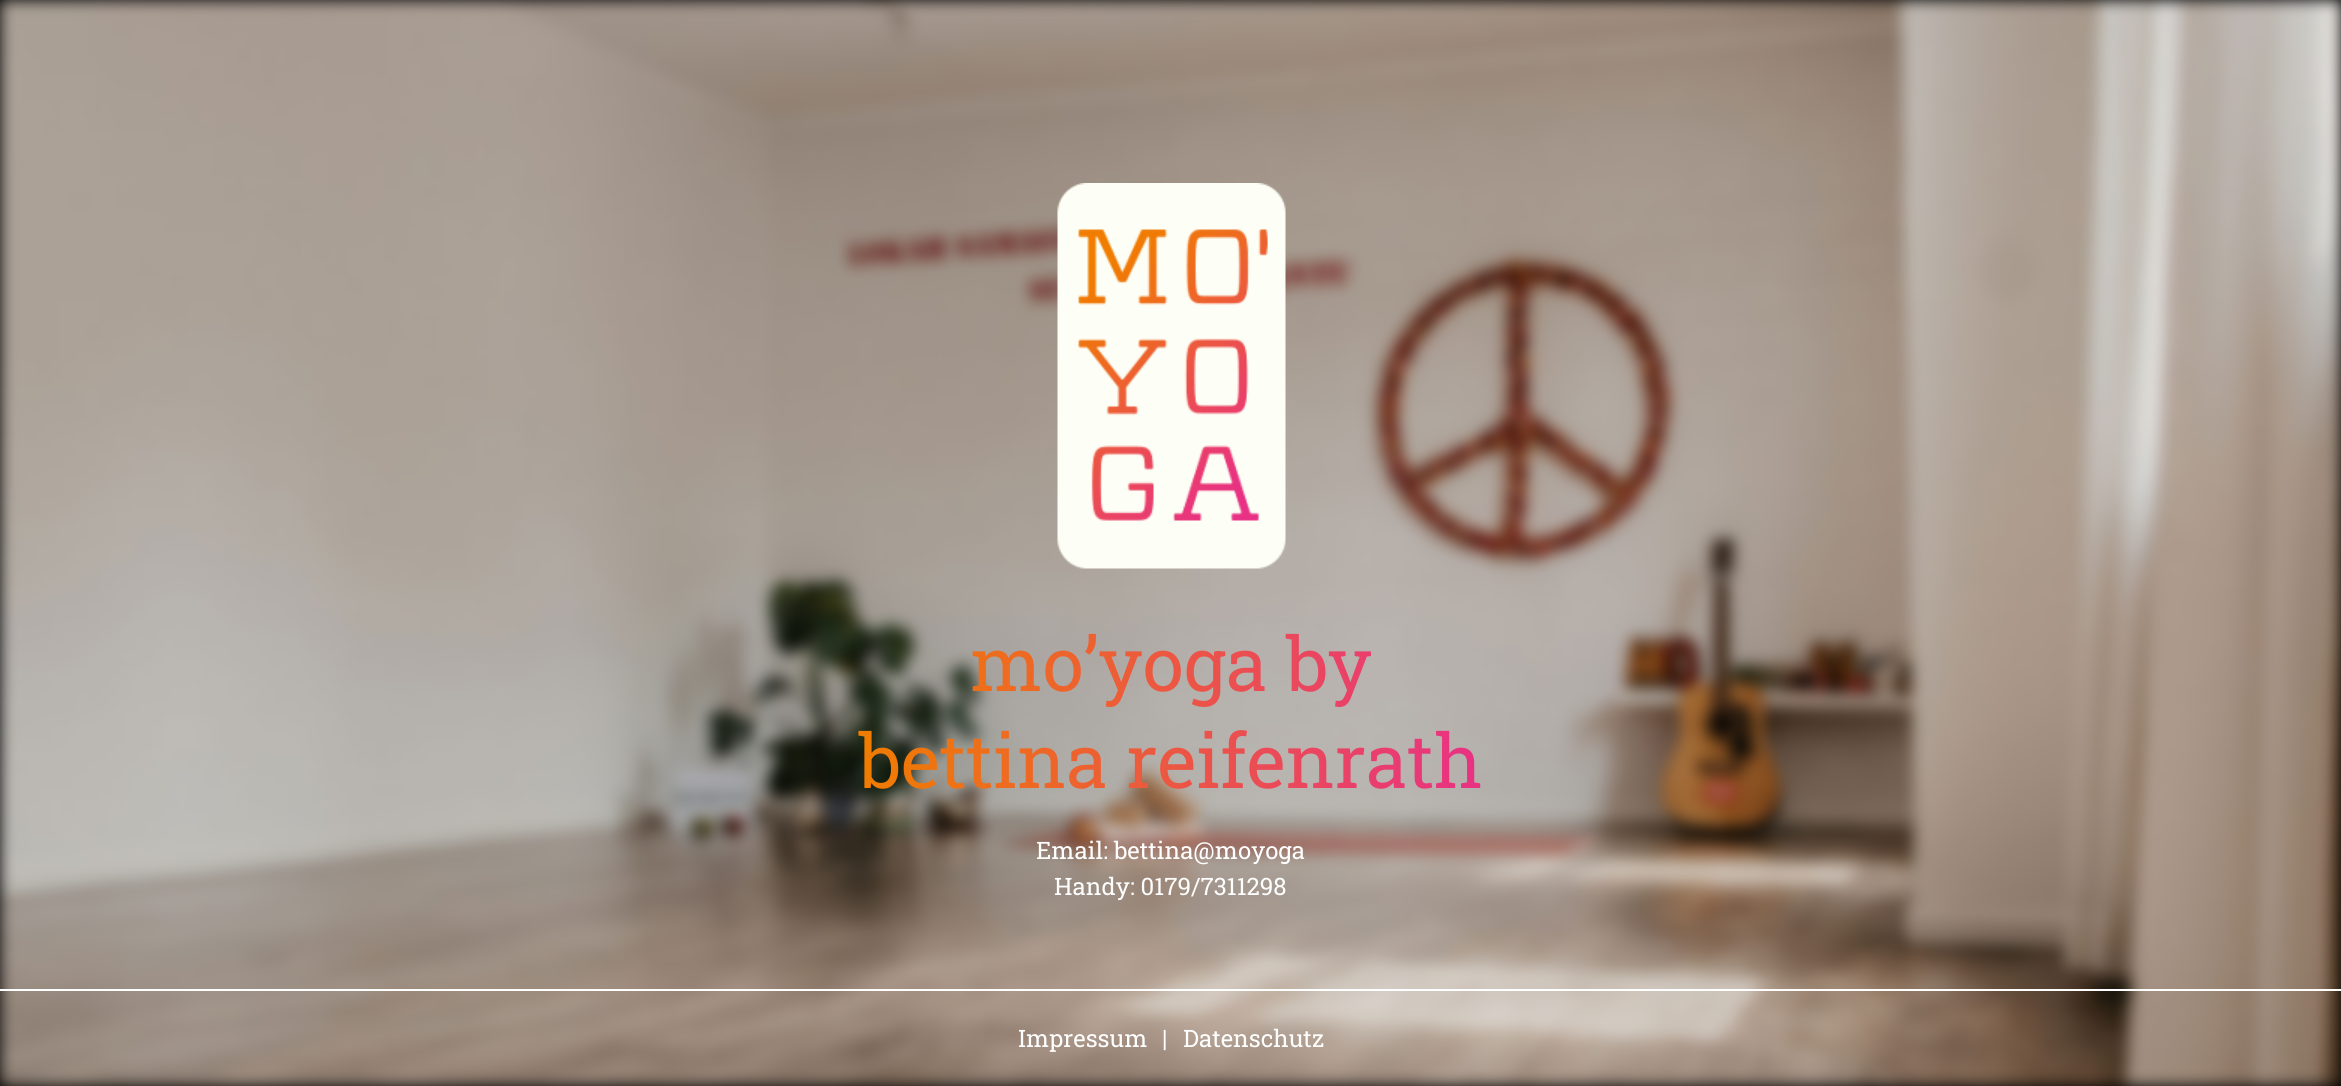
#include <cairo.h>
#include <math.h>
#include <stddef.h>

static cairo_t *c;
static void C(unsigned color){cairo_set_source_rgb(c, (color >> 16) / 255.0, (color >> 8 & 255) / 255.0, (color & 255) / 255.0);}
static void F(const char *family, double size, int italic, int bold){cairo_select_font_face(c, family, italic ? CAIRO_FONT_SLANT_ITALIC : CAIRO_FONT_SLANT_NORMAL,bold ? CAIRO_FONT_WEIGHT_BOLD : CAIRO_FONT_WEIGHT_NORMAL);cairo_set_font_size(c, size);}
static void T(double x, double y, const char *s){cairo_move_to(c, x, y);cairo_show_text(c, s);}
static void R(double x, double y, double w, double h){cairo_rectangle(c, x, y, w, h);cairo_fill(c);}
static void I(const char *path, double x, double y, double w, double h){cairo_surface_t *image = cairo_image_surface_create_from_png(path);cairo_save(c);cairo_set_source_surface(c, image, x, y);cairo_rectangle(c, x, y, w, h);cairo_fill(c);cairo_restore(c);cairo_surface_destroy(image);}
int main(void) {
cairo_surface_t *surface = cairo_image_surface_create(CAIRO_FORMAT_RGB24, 2341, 1086);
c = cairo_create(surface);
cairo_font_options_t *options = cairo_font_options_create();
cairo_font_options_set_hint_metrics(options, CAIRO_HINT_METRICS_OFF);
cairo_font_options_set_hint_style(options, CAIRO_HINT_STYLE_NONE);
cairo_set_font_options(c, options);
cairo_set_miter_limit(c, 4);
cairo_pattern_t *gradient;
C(0x000000);
cairo_paint(c);
I("1.png",0,0,2341,1086);
I("2.png",1057,183,229,386);
F("Roboto Slab",75,0,0);
gradient = cairo_pattern_create_linear(859,712,1482,712);
cairo_pattern_add_color_stop_rgba(gradient,0,0.941,0.49,0,1);
cairo_pattern_add_color_stop_rgba(gradient,1,0.91,0.192,0.518,1);
cairo_set_source(c,gradient);
cairo_pattern_destroy(gradient);
T(970,691,"mo’yoga by");
T(859,788,"bettina reifenrath");
F("Roboto Slab",24,0,0);
C(0xffffff);
T(1036,859,"Email: bettina@moyoga");
T(1054,895,"Handy: 0179/7311298");
R(0,989,2341,2);
T(1018,1047,"Impressum");
T(1162,1047,"|");
T(1183,1047,"Datenschutz");
cairo_surface_write_to_png(surface, "o.png");
cairo_font_options_destroy(options);
cairo_destroy(c);
cairo_surface_destroy(surface);
return 0;
}
